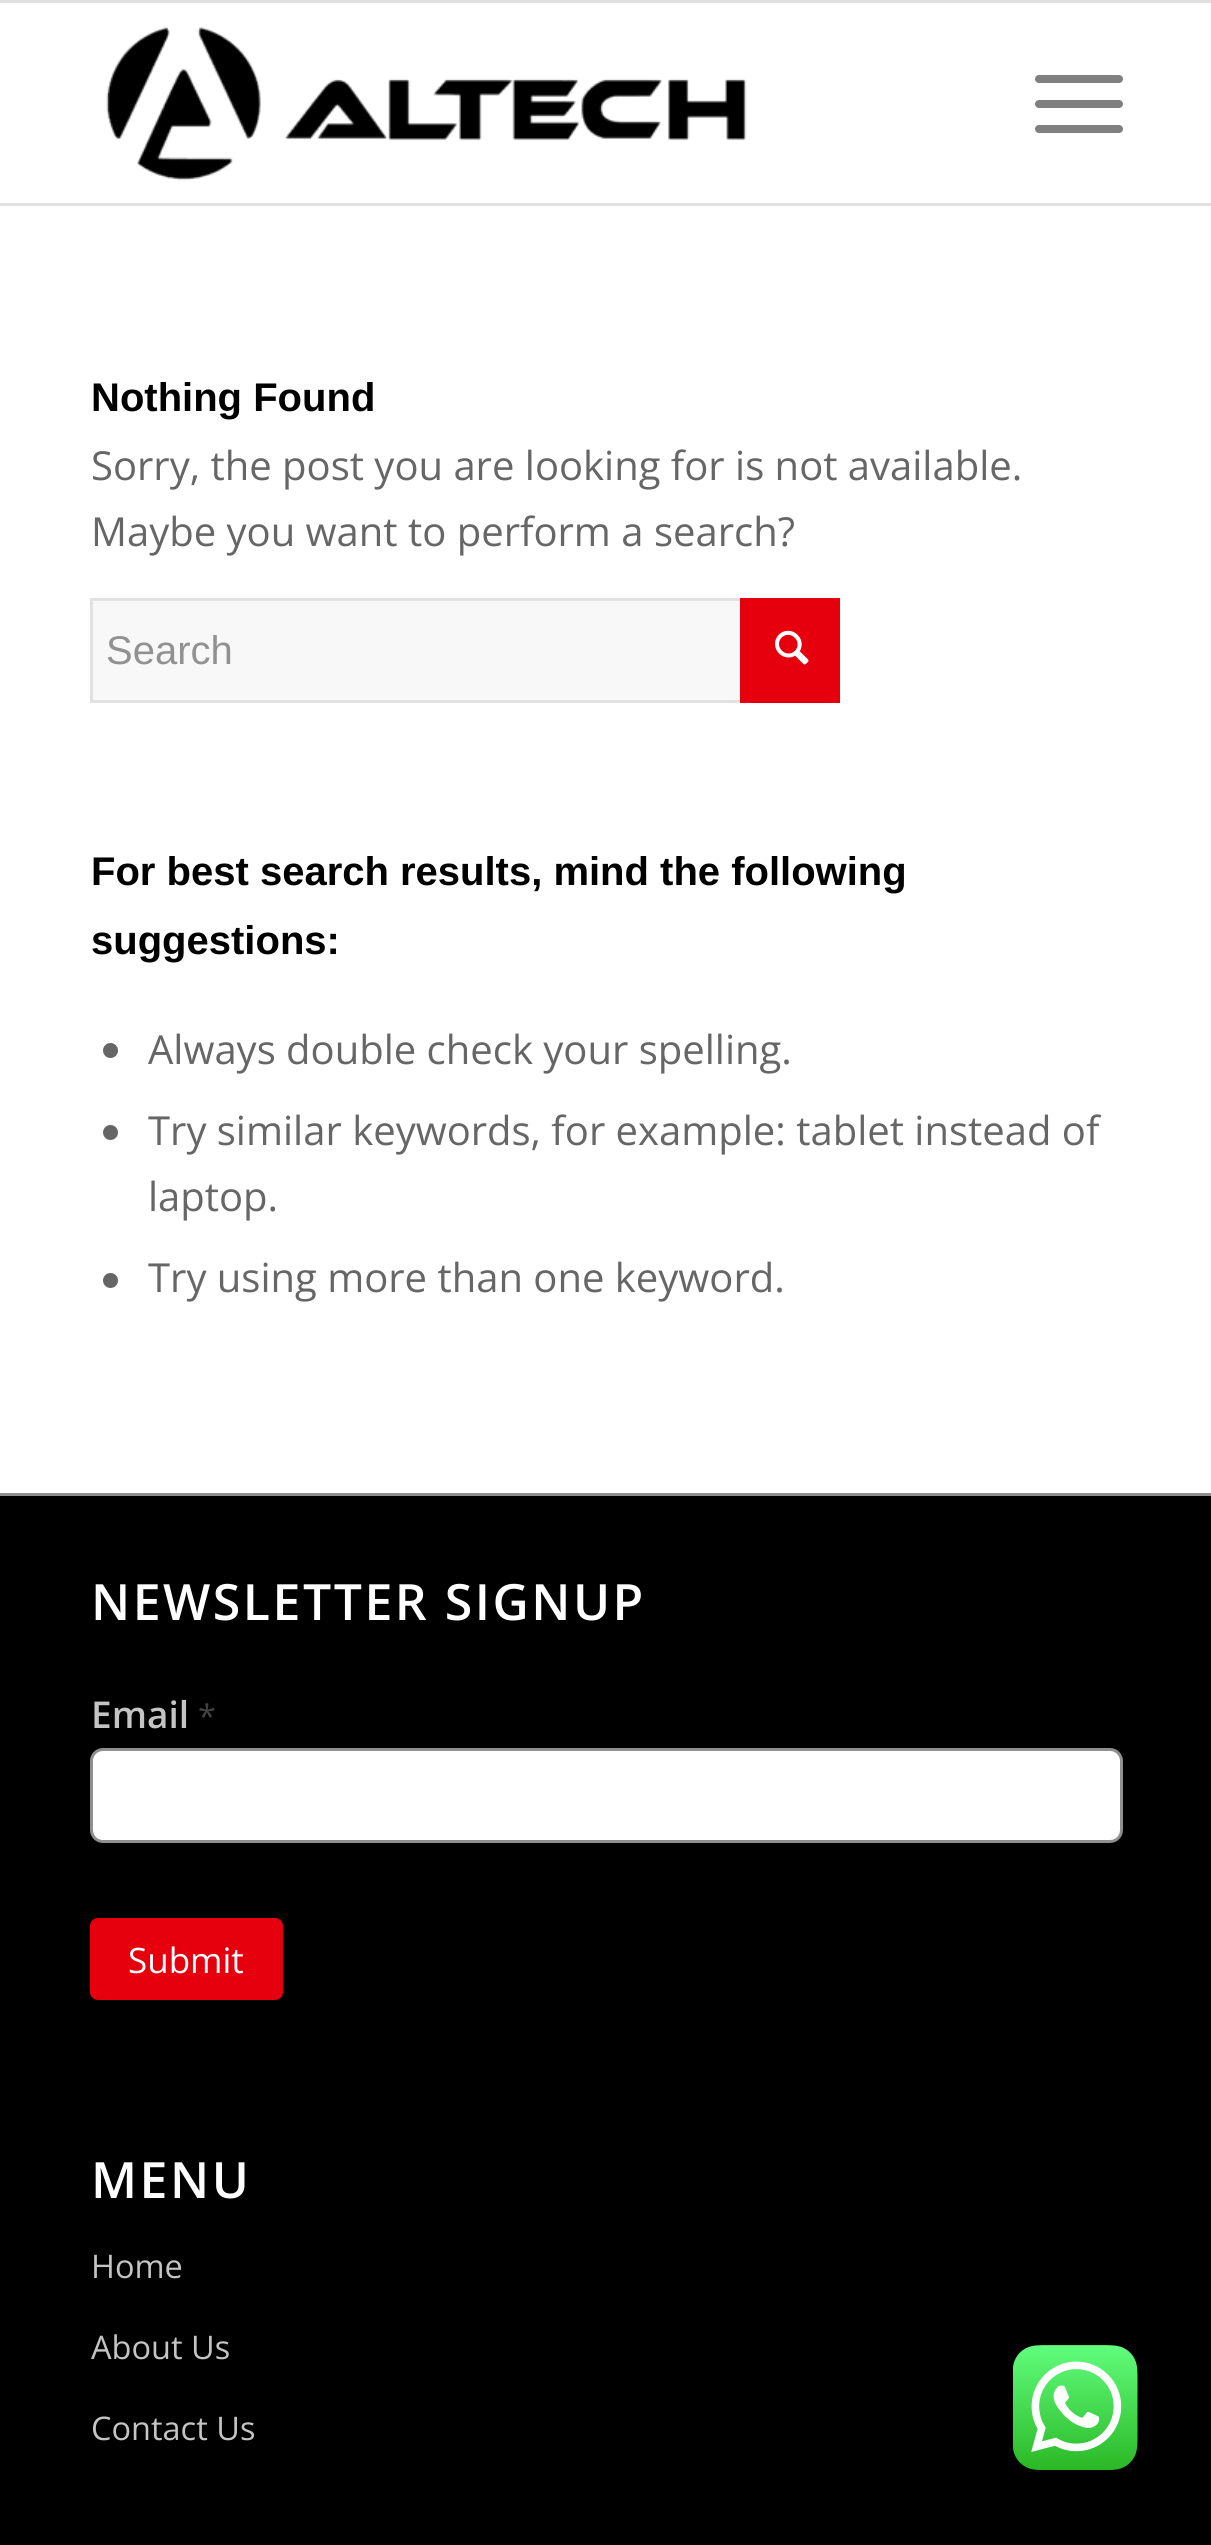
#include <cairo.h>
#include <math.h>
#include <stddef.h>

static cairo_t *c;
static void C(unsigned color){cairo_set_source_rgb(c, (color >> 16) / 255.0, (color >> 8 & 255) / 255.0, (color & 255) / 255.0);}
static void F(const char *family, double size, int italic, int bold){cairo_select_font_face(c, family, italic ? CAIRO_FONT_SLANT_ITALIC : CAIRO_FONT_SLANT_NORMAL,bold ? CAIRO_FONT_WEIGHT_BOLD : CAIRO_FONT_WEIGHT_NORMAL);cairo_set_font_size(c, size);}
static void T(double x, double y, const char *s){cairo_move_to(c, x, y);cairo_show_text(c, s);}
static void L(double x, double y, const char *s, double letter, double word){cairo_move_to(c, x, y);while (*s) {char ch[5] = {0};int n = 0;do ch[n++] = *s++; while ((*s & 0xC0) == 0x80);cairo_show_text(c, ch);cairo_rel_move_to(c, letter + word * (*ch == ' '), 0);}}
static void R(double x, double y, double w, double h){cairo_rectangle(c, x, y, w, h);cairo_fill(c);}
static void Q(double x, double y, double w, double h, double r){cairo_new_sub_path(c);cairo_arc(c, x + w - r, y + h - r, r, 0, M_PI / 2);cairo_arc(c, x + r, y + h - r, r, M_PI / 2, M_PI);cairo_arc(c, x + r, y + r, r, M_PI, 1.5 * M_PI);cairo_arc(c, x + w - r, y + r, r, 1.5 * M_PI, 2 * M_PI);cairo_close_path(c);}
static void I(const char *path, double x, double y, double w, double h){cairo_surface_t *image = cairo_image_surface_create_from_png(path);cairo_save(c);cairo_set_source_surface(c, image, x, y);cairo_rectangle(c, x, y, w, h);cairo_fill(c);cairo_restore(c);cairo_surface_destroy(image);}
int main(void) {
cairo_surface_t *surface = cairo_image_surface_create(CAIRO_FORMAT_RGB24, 1211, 2545);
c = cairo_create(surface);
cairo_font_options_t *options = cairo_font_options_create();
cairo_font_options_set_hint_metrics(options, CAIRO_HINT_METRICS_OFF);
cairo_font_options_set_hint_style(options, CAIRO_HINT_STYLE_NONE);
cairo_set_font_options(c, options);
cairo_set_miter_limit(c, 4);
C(0xffffff);
cairo_paint(c);
C(0xe1e1e1);
R(0,0,1211,3);
R(0,203,1211,3);
I("1.png",106,27,641,154);
C(0x808080);
Q(1035,100,88,8,4);
cairo_fill(c);
Q(1035,75,88,8,4);
cairo_fill(c);
Q(1035,125,88,8,4);
cairo_fill(c);
F("Liberation Sans",40,0,1);
C(0x000000);
T(91,411,"Nothing Found");
F("Open Sans",40,0,0);
C(0x666666);
T(91,480,"Sorry, the post you are looking for is not available.");
T(91,546,"Maybe you want to perform a search?");
C(0xf8f8f8);
R(93,601,647,99);
cairo_rectangle(c,91.5,599.5,747,102);
C(0xe1e1e1);
cairo_set_line_width(c,3);
cairo_stroke(c);
F("Liberation Sans",40,0,0);
C(0x919191);
T(106,664,"Search");
C(0xe6000d);
R(740,598,100,105);
I("2.png",775,630,34,35);
F("Liberation Sans",40,0,1);
C(0x000000);
T(91,885,"For best search results, mind the following");
T(91,954,"suggestions:");
C(0x666666);
cairo_new_path(c);
cairo_arc(c,110.5,1050.5,7.5,0,2 * M_PI);
cairo_fill(c);
F("Open Sans",40,0,0);
T(148,1064,"Always double check your spelling.");
cairo_new_path(c);
cairo_arc(c,110.5,1132.5,7.5,0,2 * M_PI);
cairo_fill(c);
T(148,1145,"Try similar keywords, for example: tablet instead of");
T(148,1211,"laptop.");
cairo_new_path(c);
cairo_arc(c,110.5,1280.5,7.5,0,2 * M_PI);
cairo_fill(c);
T(148,1292,"Try using more than one keyword.");
C(0x000000);
R(0,1496,1211,1049);
C(0x8f8f8f);
R(0,1493,1211,3);
F("Open Sans SemiBold",50,0,0);
C(0xffffff);
L(91,1620,"NEWSLETTER SIGNUP",2.5,0);
F("Open Sans SemiBold",37,0,0);
C(0xc4c4c4);
T(91,1728,"Email");
F("Open Sans",32.5,0,0);
C(0x444444);
T(198,1728,"*");
C(0xffffff);
Q(91.5,1749.5,1030,92,11.5);
cairo_fill_preserve(c);
C(0x8f8f8f);
cairo_stroke(c);
C(0xe6000d);
Q(90,1918,193,82,8);
cairo_fill(c);
F("Open Sans",35,0,0);
C(0xffffff);
T(128,1973,"Submit");
F("Open Sans SemiBold",50,0,0);
L(91,2198,"MENU",2.5,0);
F("Open Sans",32.5,0,0);
C(0xc4c4c4);
T(91,2278,"Home");
T(91,2359,"About Us");
T(91,2440,"Contact Us");
I("3.png",1013,2345,125,125);
cairo_surface_write_to_png(surface, "o.png");
cairo_font_options_destroy(options);
cairo_destroy(c);
cairo_surface_destroy(surface);
return 0;
}
